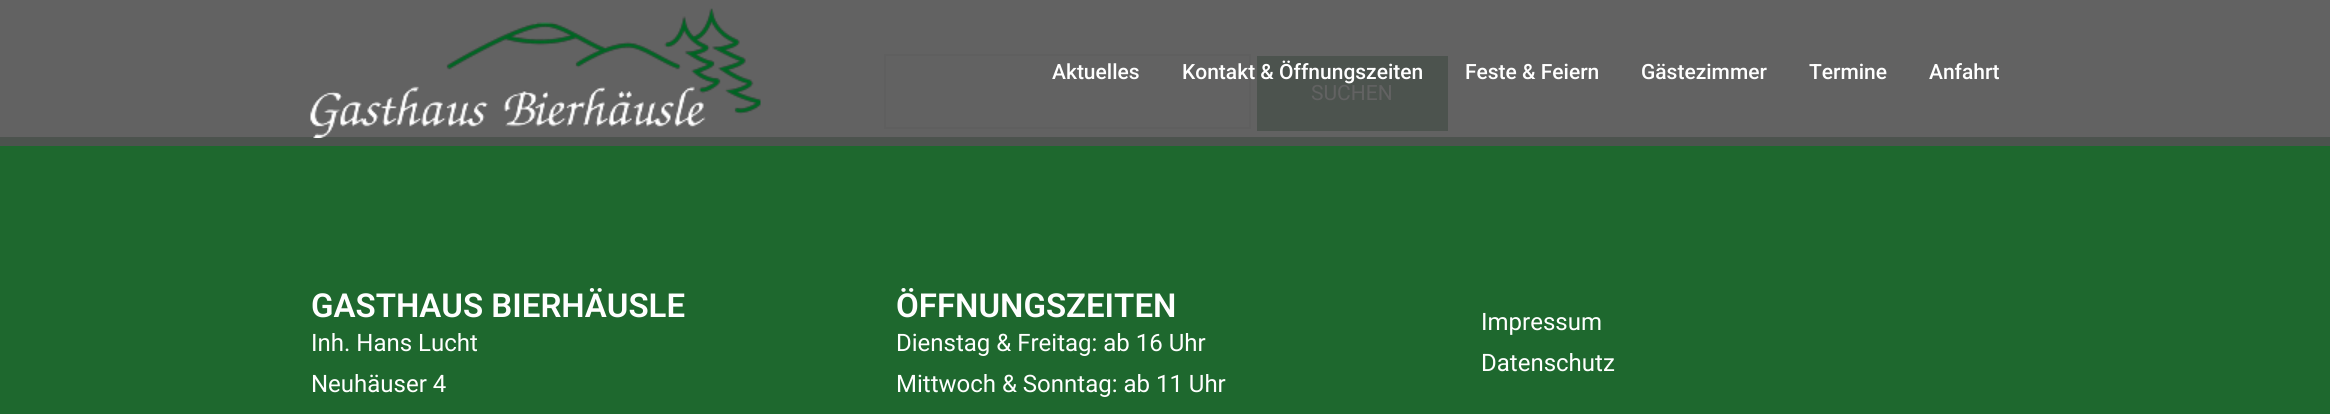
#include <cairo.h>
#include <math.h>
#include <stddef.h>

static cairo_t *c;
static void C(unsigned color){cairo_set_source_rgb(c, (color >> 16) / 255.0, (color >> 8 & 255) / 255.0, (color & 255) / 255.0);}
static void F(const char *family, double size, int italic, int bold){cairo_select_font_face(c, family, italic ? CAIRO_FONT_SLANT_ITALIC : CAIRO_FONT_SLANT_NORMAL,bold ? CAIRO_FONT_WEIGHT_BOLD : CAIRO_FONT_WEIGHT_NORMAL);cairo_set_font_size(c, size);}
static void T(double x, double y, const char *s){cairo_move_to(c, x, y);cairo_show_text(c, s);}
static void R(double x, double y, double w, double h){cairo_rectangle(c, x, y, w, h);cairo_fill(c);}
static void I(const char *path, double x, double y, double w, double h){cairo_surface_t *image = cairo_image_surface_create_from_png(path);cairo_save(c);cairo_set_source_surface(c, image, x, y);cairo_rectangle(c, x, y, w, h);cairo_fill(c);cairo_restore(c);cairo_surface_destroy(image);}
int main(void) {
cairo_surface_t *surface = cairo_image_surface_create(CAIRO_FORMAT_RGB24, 2330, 414);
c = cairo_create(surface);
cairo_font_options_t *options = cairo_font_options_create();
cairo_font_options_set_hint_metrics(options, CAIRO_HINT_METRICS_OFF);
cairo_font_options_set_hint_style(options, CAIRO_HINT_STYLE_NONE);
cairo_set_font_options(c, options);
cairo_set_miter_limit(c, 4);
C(0x626262);
cairo_paint(c);
C(0x4c534e);
R(0,137,2330,9);
I("1.png",310,8,451,130);
cairo_rectangle(c,885,55,365,73);
C(0x5f5f5f);
cairo_stroke(c);
F("Roboto Medium",21,0,0);
C(0xffffff);
T(1052,79,"Aktuelles");
C(0x4c534e);
R(1257,56,191,75);
C(0xffffff);
T(1182,79,"Kontakt & Öffnungszeiten");
T(1465,79,"Feste & Feiern");
T(1641,79,"Gästezimmer");
T(1809,79,"Termine");
T(1929,79,"Anfahrt");
F("Roboto",21,0,0);
C(0x626262);
T(1311,100,"SUCHEN");
C(0x1e682e);
R(0,146,2330,268);
F("Roboto SemiBold",33,0,0);
C(0xffffff);
T(311,317,"GASTHAUS BIERHÄUSLE");
F("Roboto",24,0,0);
T(311,351,"Inh. Hans Lucht");
T(311,392,"Neuhäuser 4");
F("Roboto SemiBold",33,0,0);
T(896,317,"ÖFFNUNGSZEITEN");
F("Roboto",24,0,0);
T(896,351,"Dienstag & Freitag: ab 16 Uhr");
T(896,392,"Mittwoch & Sonntag: ab 11 Uhr");
T(1481,330,"Impressum");
T(1481,371,"Datenschutz");
cairo_surface_write_to_png(surface, "o.png");
cairo_font_options_destroy(options);
cairo_destroy(c);
cairo_surface_destroy(surface);
return 0;
}
